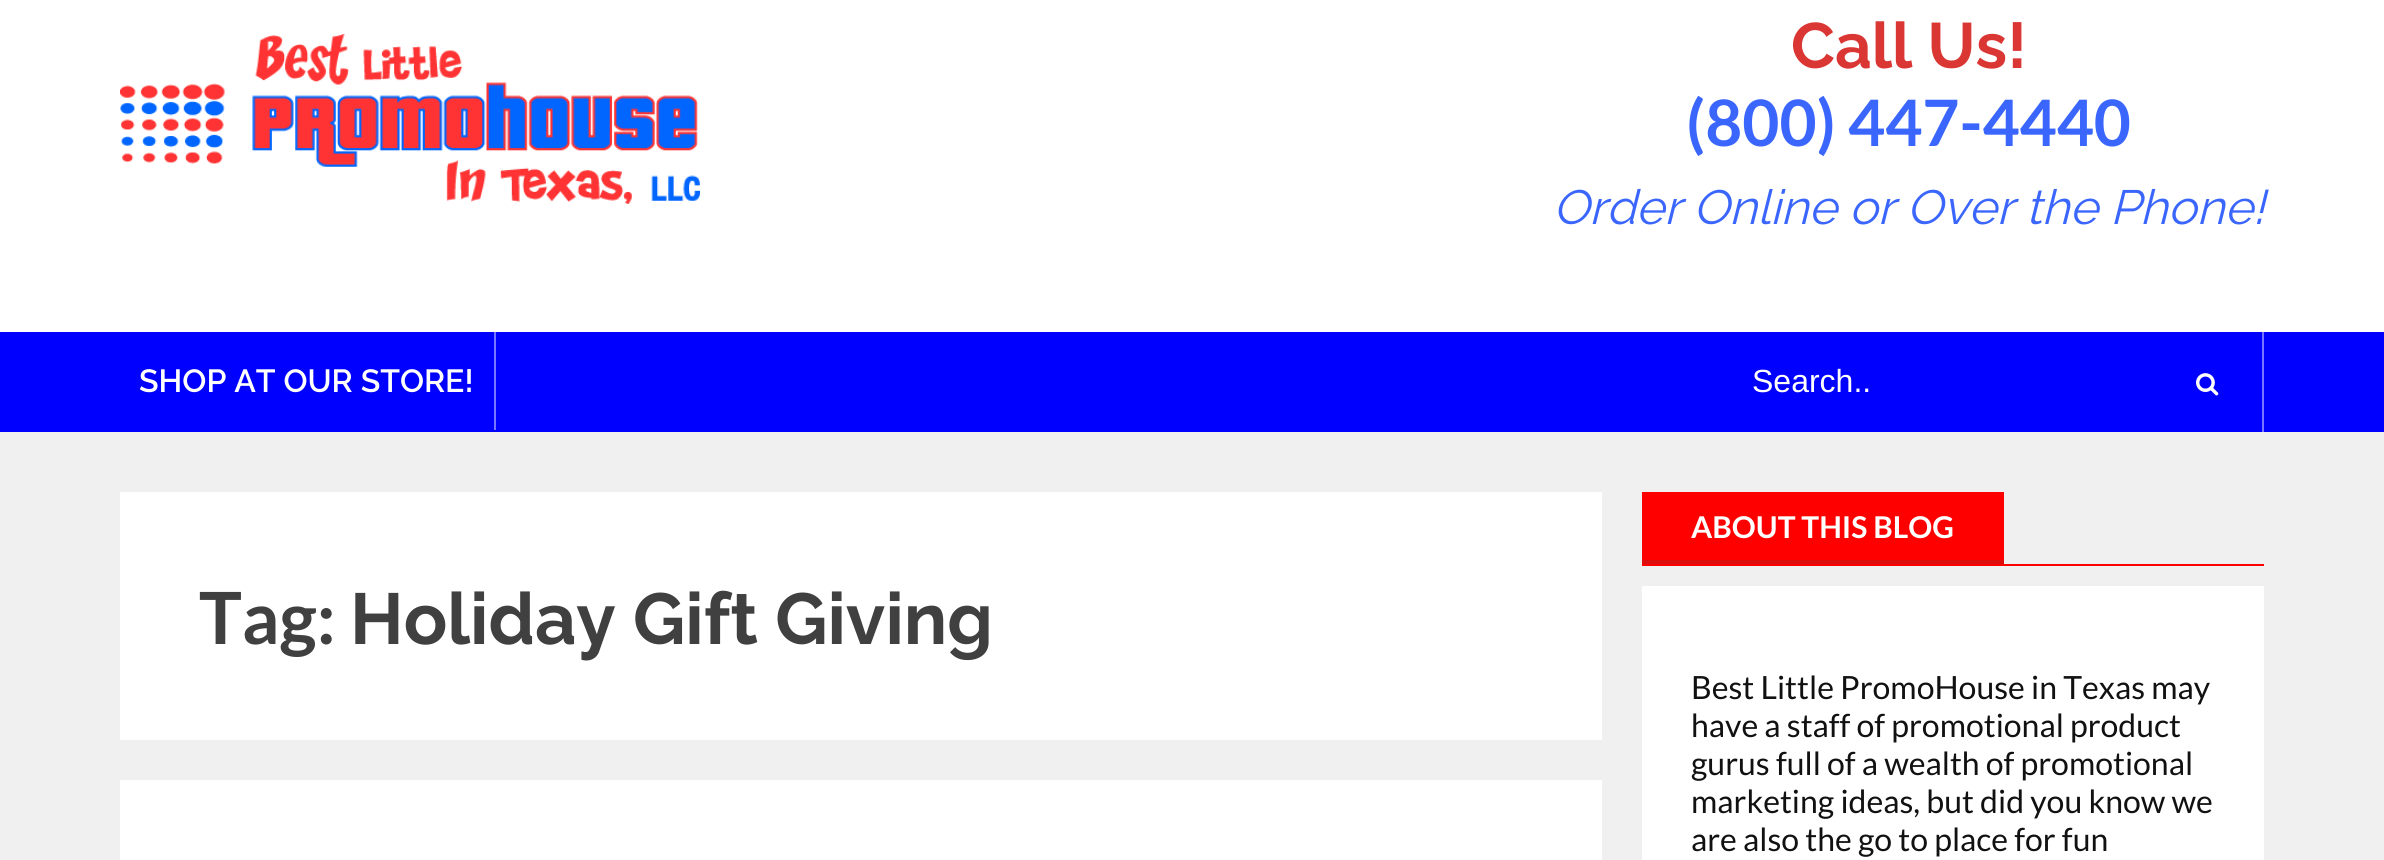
#include <cairo.h>
#include <math.h>
#include <stddef.h>

static cairo_t *c;
static void C(unsigned color){cairo_set_source_rgb(c, (color >> 16) / 255.0, (color >> 8 & 255) / 255.0, (color & 255) / 255.0);}
static void F(const char *family, double size, int italic, int bold){cairo_select_font_face(c, family, italic ? CAIRO_FONT_SLANT_ITALIC : CAIRO_FONT_SLANT_NORMAL,bold ? CAIRO_FONT_WEIGHT_BOLD : CAIRO_FONT_WEIGHT_NORMAL);cairo_set_font_size(c, size);}
static void T(double x, double y, const char *s){cairo_move_to(c, x, y);cairo_show_text(c, s);}
static void R(double x, double y, double w, double h){cairo_rectangle(c, x, y, w, h);cairo_fill(c);}
static void I(const char *path, double x, double y, double w, double h){cairo_surface_t *image = cairo_image_surface_create_from_png(path);cairo_save(c);cairo_set_source_surface(c, image, x, y);cairo_rectangle(c, x, y, w, h);cairo_fill(c);cairo_restore(c);cairo_surface_destroy(image);}
int main(void) {
cairo_surface_t *surface = cairo_image_surface_create(CAIRO_FORMAT_RGB24, 2384, 860);
c = cairo_create(surface);
cairo_font_options_t *options = cairo_font_options_create();
cairo_font_options_set_hint_metrics(options, CAIRO_HINT_METRICS_OFF);
cairo_font_options_set_hint_style(options, CAIRO_HINT_STYLE_NONE);
cairo_set_font_options(c, options);
cairo_set_miter_limit(c, 4);
C(0xf0f0f0);
cairo_paint(c);
C(0xffffff);
R(0,0,2384,332);
I("1.png",120,34,580,170);
F("Raleway",64,0,1);
C(0xda3634);
T(1791,68,"Call Us!");
F("Lato",64,0,1);
C(0x3a66fd);
T(1686,146,"(800) 447-4440");
F("Raleway",48,1,0);
T(1553,224,"Order Online or Over the Phone!");
C(0x0000ff);
R(0,332,2384,100);
C(0x7575ff);
R(494,332,2,98);
F("Raleway SemiBold",32,0,0);
C(0xffffff);
T(139,392,"SHOP AT OUR STORE!");
C(0x7575ff);
R(2262,332,2,100);
F("Liberation Sans",32,0,0);
C(0xffffff);
T(1752,392,"Search..");
I("2.png",2196,373,23,23);
R(120,492,1482,248);
F("Lato",72,0,1);
C(0x404040);
T(199,644,"Tag:");
F("Raleway",72,0,1);
T(350,644,"Holiday Gift Giving");
C(0xffffff);
R(120,780,1482,80);
C(0xff0000);
R(1642,564,622,2);
R(1642,492,362,68);
C(0xdc0e0e);
R(1642,560,362,4);
F("Lato",30,0,1);
C(0xffffff);
T(1691,538,"ABOUT THIS BLOG");
R(1642,586,622,274);
F("Lato",32,0,0);
C(0x111111);
T(1691,699,"Best Little PromoHouse in Texas may");
T(1691,737,"have a staff of promotional product");
T(1691,775,"gurus full of a wealth of promotional");
T(1691,813,"marketing ideas, but did you know we");
T(1691,851,"are also the go to place for fun");
cairo_surface_write_to_png(surface, "o.png");
cairo_font_options_destroy(options);
cairo_destroy(c);
cairo_surface_destroy(surface);
return 0;
}
